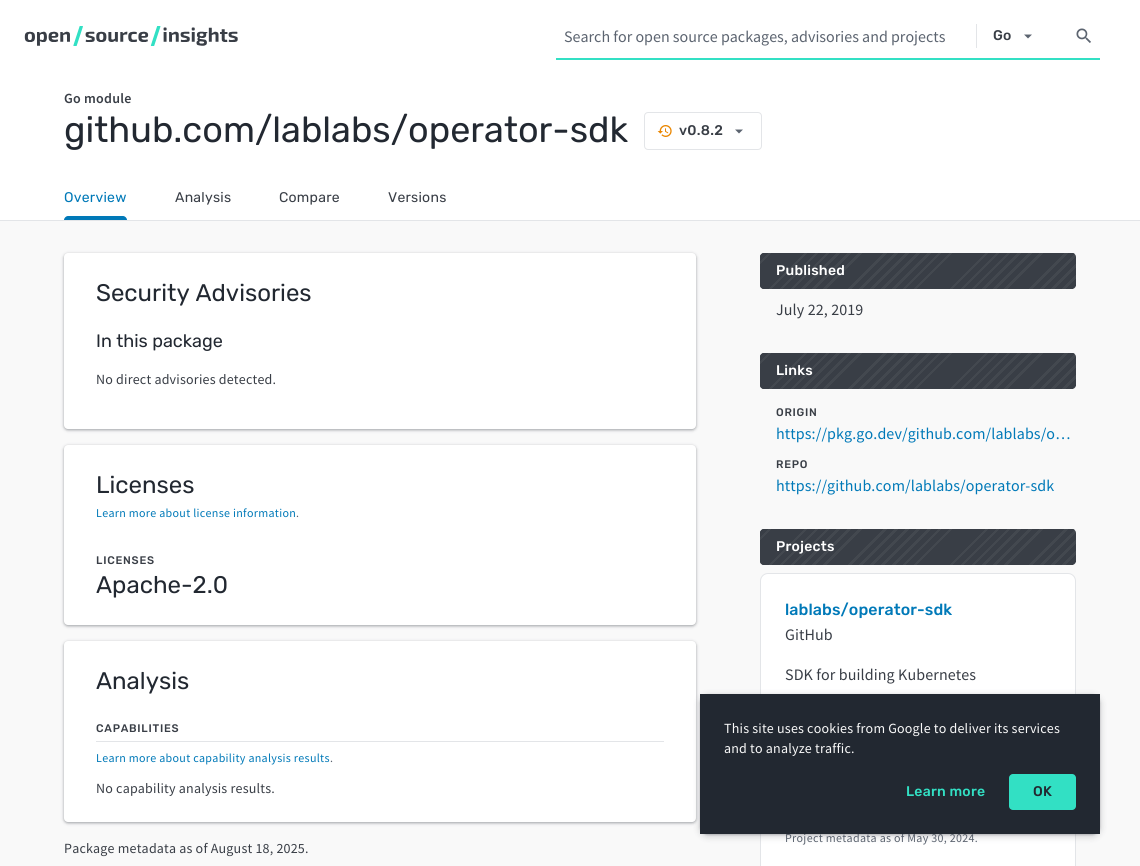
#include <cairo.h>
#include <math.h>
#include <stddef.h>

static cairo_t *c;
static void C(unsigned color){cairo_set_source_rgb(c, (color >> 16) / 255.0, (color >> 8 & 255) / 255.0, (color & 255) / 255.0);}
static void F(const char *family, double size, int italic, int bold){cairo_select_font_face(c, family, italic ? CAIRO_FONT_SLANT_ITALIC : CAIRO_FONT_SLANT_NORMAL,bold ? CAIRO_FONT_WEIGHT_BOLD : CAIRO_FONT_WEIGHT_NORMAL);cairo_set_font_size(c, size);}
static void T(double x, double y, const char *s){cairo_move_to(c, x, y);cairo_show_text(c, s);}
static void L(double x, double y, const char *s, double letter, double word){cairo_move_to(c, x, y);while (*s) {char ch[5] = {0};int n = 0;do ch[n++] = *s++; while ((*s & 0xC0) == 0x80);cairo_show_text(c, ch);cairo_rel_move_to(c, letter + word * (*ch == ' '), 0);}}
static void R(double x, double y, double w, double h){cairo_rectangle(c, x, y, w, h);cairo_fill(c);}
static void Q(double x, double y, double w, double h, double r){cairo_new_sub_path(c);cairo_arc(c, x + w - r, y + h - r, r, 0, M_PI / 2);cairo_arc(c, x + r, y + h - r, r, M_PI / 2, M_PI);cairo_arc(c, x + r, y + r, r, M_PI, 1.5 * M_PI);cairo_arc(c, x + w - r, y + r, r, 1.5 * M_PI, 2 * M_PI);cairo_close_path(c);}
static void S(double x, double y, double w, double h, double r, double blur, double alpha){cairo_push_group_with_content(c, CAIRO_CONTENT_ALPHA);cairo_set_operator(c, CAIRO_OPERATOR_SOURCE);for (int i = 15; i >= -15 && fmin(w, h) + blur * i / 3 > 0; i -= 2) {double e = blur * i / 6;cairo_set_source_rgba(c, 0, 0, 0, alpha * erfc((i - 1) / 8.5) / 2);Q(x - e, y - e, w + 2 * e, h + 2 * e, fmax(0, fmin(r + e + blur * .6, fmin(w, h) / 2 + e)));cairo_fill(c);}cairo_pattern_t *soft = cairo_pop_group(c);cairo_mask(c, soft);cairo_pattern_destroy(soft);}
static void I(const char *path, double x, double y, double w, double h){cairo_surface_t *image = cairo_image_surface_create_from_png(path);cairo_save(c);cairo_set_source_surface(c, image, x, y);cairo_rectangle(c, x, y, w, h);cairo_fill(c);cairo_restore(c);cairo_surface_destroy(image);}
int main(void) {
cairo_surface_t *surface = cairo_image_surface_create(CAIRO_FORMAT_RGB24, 1140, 866);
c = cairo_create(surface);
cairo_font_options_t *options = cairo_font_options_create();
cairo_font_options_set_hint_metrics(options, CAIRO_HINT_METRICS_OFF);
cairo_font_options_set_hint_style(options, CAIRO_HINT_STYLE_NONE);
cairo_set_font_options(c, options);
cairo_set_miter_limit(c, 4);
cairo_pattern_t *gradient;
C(0xffffff);
cairo_paint(c);
I("1.png",24,26,214,20);
F("Source Sans Pro",16,0,0);
C(0x5c6470);
T(564,42,"Search for open source packages, advisories and projects");
C(0xe3e5e8);
R(976,24,1,24);
F("Rubik Medium",14,0,0);
C(0x393e46);
L(993,40,"Go",.25,0);
C(0x5c6470);
cairo_new_path(c);
cairo_move_to(c,1024,34.5);
cairo_line_to(c,1032,34.5);
cairo_line_to(c,1028,38.5);
cairo_close_path(c);
cairo_fill(c);
I("2.png",1076,28,15,15);
C(0x32e0c4);
R(556,58,544,2);
C(0xf9f9f9);
R(0,221,1140,645);
C(0xe3e5e8);
R(0,220,1140,1);
F("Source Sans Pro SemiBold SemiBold",14,0,0);
C(0x393e46);
L(64,103,"Go module",.25,0);
F("Rubik",36,0,0);
C(0x222831);
T(64,142,"github.com/lablabs/operator-sdk");
Q(644.5,112.5,117,37,3.5);
C(0xe3e5e8);
cairo_set_line_width(c,1);
cairo_stroke(c);
I("3.png",657,125,15,12);
F("Rubik Medium",14,0,0);
C(0x393e46);
L(679,135,"v0.8.2",.25,0);
C(0x5c6470);
cairo_new_path(c);
cairo_move_to(c,735,129.5);
cairo_line_to(c,743,129.5);
cairo_line_to(c,739,133.5);
cairo_close_path(c);
cairo_fill(c);
F("Rubik",14,0,0);
C(0x0079b8);
L(64,202,"Overview",.25,0);
cairo_new_path(c);
cairo_move_to(c,68,216);
cairo_line_to(c,123,216);
cairo_curve_to(c,125,216,127,218,127,220);
cairo_line_to(c,64,220);
cairo_curve_to(c,64,218,66,216,68,216);
cairo_close_path(c);
cairo_fill(c);
C(0x393e46);
L(175,202,"Analysis",.25,0);
L(279,202,"Compare",.25,0);
L(388,202,"Versions",.25,0);
C(0x393e46);
S(63,253,634,178,5,1.5,.15);
S(64,254,632,176,4,1,.3);
C(0xffffff);
Q(64,253,632,176,4);
cairo_fill(c);
F("Rubik",24,0,0);
C(0x222831);
T(96,301,"Security Advisories");
F("Rubik",18,0,0);
T(96,347,"In this package");
F("Source Sans Pro",14,0,0);
C(0x393e46);
L(96,384,"No direct advisories detected.",.2,0);
C(0x393e46);
S(63,445,634,182,5,1.5,.15);
S(64,446,632,180,4,1,.3);
C(0xffffff);
Q(64,445,632,180,4);
cairo_fill(c);
F("Rubik",24,0,0);
C(0x222831);
T(96,493,"Licenses");
F("Source Sans Pro",12,0,0);
C(0x0079b8);
L(96,517,"Learn more about license information",.3,0);
C(0x5c6470);
L(296,517,".",.3,0);
F("Rubik Medium",11,0,0);
C(0x393e46);
L(96,564,"LICENSES",.75,0);
F("Rubik",24,0,0);
C(0x222831);
T(96,593,"Apache-2.0");
C(0x393e46);
S(63,641,634,183,5,1.5,.15);
S(64,642,632,181,4,1,.3);
C(0xffffff);
Q(64,641,632,181,4);
cairo_fill(c);
C(0x222831);
T(96,689,"Analysis");
C(0xe3e5e8);
R(96,741,568,1);
F("Rubik Medium",11,0,0);
C(0x393e46);
L(96,732,"CAPABILITIES",.75,0);
F("Source Sans Pro",12,0,0);
C(0x0079b8);
L(96,762,"Learn more about capability analysis results",.3,0);
C(0x5c6470);
L(330,762,".",.3,0);
F("Source Sans Pro",14,0,0);
C(0x393e46);
L(96,793,"No capability analysis results.",.2,0);
L(64,853,"Package metadata as of August 18, 2025.",.2,0);
Q(760,253,316,36,4);
cairo_fill(c);
gradient = cairo_pattern_create_linear(1006,359,825,178);
cairo_pattern_add_color_stop_rgba(gradient,0,1,1,1,.05);
cairo_pattern_add_color_stop_rgba(gradient,.01,1,1,1,.05);
cairo_pattern_add_color_stop_rgba(gradient,.01,0.224,0.243,0.275,1);
cairo_pattern_add_color_stop_rgba(gradient,.03,0.224,0.243,0.275,1);
cairo_pattern_add_color_stop_rgba(gradient,.03,1,1,1,.05);
cairo_pattern_add_color_stop_rgba(gradient,.04,1,1,1,.05);
cairo_pattern_add_color_stop_rgba(gradient,.04,0.224,0.243,0.275,1);
cairo_pattern_add_color_stop_rgba(gradient,.06,0.224,0.243,0.275,1);
cairo_pattern_add_color_stop_rgba(gradient,.06,1,1,1,.05);
cairo_pattern_add_color_stop_rgba(gradient,.07,1,1,1,.05);
cairo_pattern_add_color_stop_rgba(gradient,.07,0.224,0.243,0.275,1);
cairo_pattern_add_color_stop_rgba(gradient,.09,0.224,0.243,0.275,1);
cairo_pattern_add_color_stop_rgba(gradient,.09,1,1,1,.05);
cairo_pattern_add_color_stop_rgba(gradient,.1,1,1,1,.05);
cairo_pattern_add_color_stop_rgba(gradient,.1,0.224,0.243,0.275,1);
cairo_pattern_add_color_stop_rgba(gradient,.12,0.224,0.243,0.275,1);
cairo_pattern_add_color_stop_rgba(gradient,.12,1,1,1,.05);
cairo_pattern_add_color_stop_rgba(gradient,.13,1,1,1,.05);
cairo_pattern_add_color_stop_rgba(gradient,.13,0.224,0.243,0.275,1);
cairo_pattern_add_color_stop_rgba(gradient,.16,0.224,0.243,0.275,1);
cairo_pattern_add_color_stop_rgba(gradient,.16,1,1,1,.05);
cairo_pattern_add_color_stop_rgba(gradient,.16,1,1,1,.05);
cairo_pattern_add_color_stop_rgba(gradient,.16,0.224,0.243,0.275,1);
cairo_pattern_add_color_stop_rgba(gradient,.19,0.224,0.243,0.275,1);
cairo_pattern_add_color_stop_rgba(gradient,.19,1,1,1,.05);
cairo_pattern_add_color_stop_rgba(gradient,.2,1,1,1,.05);
cairo_pattern_add_color_stop_rgba(gradient,.2,0.224,0.243,0.275,1);
cairo_pattern_add_color_stop_rgba(gradient,.22,0.224,0.243,0.275,1);
cairo_pattern_add_color_stop_rgba(gradient,.22,1,1,1,.05);
cairo_pattern_add_color_stop_rgba(gradient,.23,1,1,1,.05);
cairo_pattern_add_color_stop_rgba(gradient,.23,0.224,0.243,0.275,1);
cairo_pattern_add_color_stop_rgba(gradient,.25,0.224,0.243,0.275,1);
cairo_pattern_add_color_stop_rgba(gradient,.25,1,1,1,.05);
cairo_pattern_add_color_stop_rgba(gradient,.26,1,1,1,.05);
cairo_pattern_add_color_stop_rgba(gradient,.26,0.224,0.243,0.275,1);
cairo_pattern_add_color_stop_rgba(gradient,.28,0.224,0.243,0.275,1);
cairo_pattern_add_color_stop_rgba(gradient,.28,1,1,1,.05);
cairo_pattern_add_color_stop_rgba(gradient,.29,1,1,1,.05);
cairo_pattern_add_color_stop_rgba(gradient,.29,0.224,0.243,0.275,1);
cairo_pattern_add_color_stop_rgba(gradient,.31,0.224,0.243,0.275,1);
cairo_pattern_add_color_stop_rgba(gradient,.31,1,1,1,.05);
cairo_pattern_add_color_stop_rgba(gradient,.32,1,1,1,.05);
cairo_pattern_add_color_stop_rgba(gradient,.32,0.224,0.243,0.275,1);
cairo_pattern_add_color_stop_rgba(gradient,.34,0.224,0.243,0.275,1);
cairo_pattern_add_color_stop_rgba(gradient,.34,1,1,1,.05);
cairo_pattern_add_color_stop_rgba(gradient,.35,1,1,1,.05);
cairo_pattern_add_color_stop_rgba(gradient,.35,0.224,0.243,0.275,1);
cairo_pattern_add_color_stop_rgba(gradient,.38,0.224,0.243,0.275,1);
cairo_pattern_add_color_stop_rgba(gradient,.38,1,1,1,.05);
cairo_pattern_add_color_stop_rgba(gradient,.38,1,1,1,.05);
cairo_pattern_add_color_stop_rgba(gradient,.38,0.224,0.243,0.275,1);
cairo_pattern_add_color_stop_rgba(gradient,.41,0.224,0.243,0.275,1);
cairo_pattern_add_color_stop_rgba(gradient,.41,1,1,1,.05);
cairo_pattern_add_color_stop_rgba(gradient,.41,1,1,1,.05);
cairo_pattern_add_color_stop_rgba(gradient,.41,0.224,0.243,0.275,1);
cairo_pattern_add_color_stop_rgba(gradient,.44,0.224,0.243,0.275,1);
cairo_pattern_add_color_stop_rgba(gradient,.44,1,1,1,.05);
cairo_pattern_add_color_stop_rgba(gradient,.45,1,1,1,.05);
cairo_pattern_add_color_stop_rgba(gradient,.45,0.224,0.243,0.275,1);
cairo_pattern_add_color_stop_rgba(gradient,.47,0.224,0.243,0.275,1);
cairo_pattern_add_color_stop_rgba(gradient,.47,1,1,1,.05);
cairo_pattern_add_color_stop_rgba(gradient,.48,1,1,1,.05);
cairo_pattern_add_color_stop_rgba(gradient,.48,0.224,0.243,0.275,1);
cairo_pattern_add_color_stop_rgba(gradient,.5,0.224,0.243,0.275,1);
cairo_pattern_add_color_stop_rgba(gradient,.5,1,1,1,.05);
cairo_pattern_add_color_stop_rgba(gradient,.51,1,1,1,.05);
cairo_pattern_add_color_stop_rgba(gradient,.51,0.224,0.243,0.275,1);
cairo_pattern_add_color_stop_rgba(gradient,.53,0.224,0.243,0.275,1);
cairo_pattern_add_color_stop_rgba(gradient,.53,1,1,1,.05);
cairo_pattern_add_color_stop_rgba(gradient,.54,1,1,1,.05);
cairo_pattern_add_color_stop_rgba(gradient,.54,0.224,0.243,0.275,1);
cairo_pattern_add_color_stop_rgba(gradient,.56,0.224,0.243,0.275,1);
cairo_pattern_add_color_stop_rgba(gradient,.56,1,1,1,.05);
cairo_pattern_add_color_stop_rgba(gradient,.57,1,1,1,.05);
cairo_pattern_add_color_stop_rgba(gradient,.57,0.224,0.243,0.275,1);
cairo_pattern_add_color_stop_rgba(gradient,.59,0.224,0.243,0.275,1);
cairo_pattern_add_color_stop_rgba(gradient,.59,1,1,1,.05);
cairo_pattern_add_color_stop_rgba(gradient,.6,1,1,1,.05);
cairo_pattern_add_color_stop_rgba(gradient,.6,0.224,0.243,0.275,1);
cairo_pattern_add_color_stop_rgba(gradient,.62,0.224,0.243,0.275,1);
cairo_pattern_add_color_stop_rgba(gradient,.62,1,1,1,.05);
cairo_pattern_add_color_stop_rgba(gradient,.63,1,1,1,.05);
cairo_pattern_add_color_stop_rgba(gradient,.63,0.224,0.243,0.275,1);
cairo_pattern_add_color_stop_rgba(gradient,.66,0.224,0.243,0.275,1);
cairo_pattern_add_color_stop_rgba(gradient,.66,1,1,1,.05);
cairo_pattern_add_color_stop_rgba(gradient,.66,1,1,1,.05);
cairo_pattern_add_color_stop_rgba(gradient,.66,0.224,0.243,0.275,1);
cairo_pattern_add_color_stop_rgba(gradient,.69,0.224,0.243,0.275,1);
cairo_pattern_add_color_stop_rgba(gradient,.69,1,1,1,.05);
cairo_pattern_add_color_stop_rgba(gradient,.7,1,1,1,.05);
cairo_pattern_add_color_stop_rgba(gradient,.7,0.224,0.243,0.275,1);
cairo_pattern_add_color_stop_rgba(gradient,.72,0.224,0.243,0.275,1);
cairo_pattern_add_color_stop_rgba(gradient,.72,1,1,1,.05);
cairo_pattern_add_color_stop_rgba(gradient,.73,1,1,1,.05);
cairo_pattern_add_color_stop_rgba(gradient,.73,0.224,0.243,0.275,1);
cairo_pattern_add_color_stop_rgba(gradient,.75,0.224,0.243,0.275,1);
cairo_pattern_add_color_stop_rgba(gradient,.75,1,1,1,.05);
cairo_pattern_add_color_stop_rgba(gradient,.76,1,1,1,.05);
cairo_pattern_add_color_stop_rgba(gradient,.76,0.224,0.243,0.275,1);
cairo_pattern_add_color_stop_rgba(gradient,.78,0.224,0.243,0.275,1);
cairo_pattern_add_color_stop_rgba(gradient,.78,1,1,1,.05);
cairo_pattern_add_color_stop_rgba(gradient,.79,1,1,1,.05);
cairo_pattern_add_color_stop_rgba(gradient,.79,0.224,0.243,0.275,1);
cairo_pattern_add_color_stop_rgba(gradient,.81,0.224,0.243,0.275,1);
cairo_pattern_add_color_stop_rgba(gradient,.81,1,1,1,.05);
cairo_pattern_add_color_stop_rgba(gradient,.82,1,1,1,.05);
cairo_pattern_add_color_stop_rgba(gradient,.82,0.224,0.243,0.275,1);
cairo_pattern_add_color_stop_rgba(gradient,.84,0.224,0.243,0.275,1);
cairo_pattern_add_color_stop_rgba(gradient,.84,1,1,1,.05);
cairo_pattern_add_color_stop_rgba(gradient,.85,1,1,1,.05);
cairo_pattern_add_color_stop_rgba(gradient,.85,0.224,0.243,0.275,1);
cairo_pattern_add_color_stop_rgba(gradient,.88,0.224,0.243,0.275,1);
cairo_pattern_add_color_stop_rgba(gradient,.88,1,1,1,.05);
cairo_pattern_add_color_stop_rgba(gradient,.88,1,1,1,.05);
cairo_pattern_add_color_stop_rgba(gradient,.88,0.224,0.243,0.275,1);
cairo_pattern_add_color_stop_rgba(gradient,.91,0.224,0.243,0.275,1);
cairo_pattern_add_color_stop_rgba(gradient,.91,1,1,1,.05);
cairo_pattern_add_color_stop_rgba(gradient,.91,1,1,1,.05);
cairo_pattern_add_color_stop_rgba(gradient,.91,0.224,0.243,0.275,1);
cairo_pattern_add_color_stop_rgba(gradient,.94,0.224,0.243,0.275,1);
cairo_pattern_add_color_stop_rgba(gradient,.94,1,1,1,.05);
cairo_pattern_add_color_stop_rgba(gradient,.95,1,1,1,.05);
cairo_pattern_add_color_stop_rgba(gradient,.95,0.224,0.243,0.275,1);
cairo_pattern_add_color_stop_rgba(gradient,.97,0.224,0.243,0.275,1);
cairo_pattern_add_color_stop_rgba(gradient,.97,1,1,1,.05);
cairo_pattern_add_color_stop_rgba(gradient,.98,1,1,1,.05);
cairo_pattern_add_color_stop_rgba(gradient,.98,0.224,0.243,0.275,1);
cairo_pattern_add_color_stop_rgba(gradient,1,0.224,0.243,0.275,1);
cairo_set_source(c,gradient);
cairo_pattern_destroy(gradient);
Q(760,253,316,36,4);
cairo_fill(c);
F("Rubik Medium",14,0,0);
C(0xffffff);
L(776,275,"Published",.25,0);
F("Source Sans Pro",16,0,0);
C(0x393e46);
L(776,315,"July 22, 2019",.1,0);
Q(760,353,316,36,4);
cairo_fill(c);
gradient = cairo_pattern_create_linear(1006,459,825,278);
cairo_pattern_add_color_stop_rgba(gradient,0,1,1,1,.05);
cairo_pattern_add_color_stop_rgba(gradient,.01,1,1,1,.05);
cairo_pattern_add_color_stop_rgba(gradient,.01,0.224,0.243,0.275,1);
cairo_pattern_add_color_stop_rgba(gradient,.03,0.224,0.243,0.275,1);
cairo_pattern_add_color_stop_rgba(gradient,.03,1,1,1,.05);
cairo_pattern_add_color_stop_rgba(gradient,.04,1,1,1,.05);
cairo_pattern_add_color_stop_rgba(gradient,.04,0.224,0.243,0.275,1);
cairo_pattern_add_color_stop_rgba(gradient,.06,0.224,0.243,0.275,1);
cairo_pattern_add_color_stop_rgba(gradient,.06,1,1,1,.05);
cairo_pattern_add_color_stop_rgba(gradient,.07,1,1,1,.05);
cairo_pattern_add_color_stop_rgba(gradient,.07,0.224,0.243,0.275,1);
cairo_pattern_add_color_stop_rgba(gradient,.09,0.224,0.243,0.275,1);
cairo_pattern_add_color_stop_rgba(gradient,.09,1,1,1,.05);
cairo_pattern_add_color_stop_rgba(gradient,.1,1,1,1,.05);
cairo_pattern_add_color_stop_rgba(gradient,.1,0.224,0.243,0.275,1);
cairo_pattern_add_color_stop_rgba(gradient,.12,0.224,0.243,0.275,1);
cairo_pattern_add_color_stop_rgba(gradient,.12,1,1,1,.05);
cairo_pattern_add_color_stop_rgba(gradient,.13,1,1,1,.05);
cairo_pattern_add_color_stop_rgba(gradient,.13,0.224,0.243,0.275,1);
cairo_pattern_add_color_stop_rgba(gradient,.16,0.224,0.243,0.275,1);
cairo_pattern_add_color_stop_rgba(gradient,.16,1,1,1,.05);
cairo_pattern_add_color_stop_rgba(gradient,.16,1,1,1,.05);
cairo_pattern_add_color_stop_rgba(gradient,.16,0.224,0.243,0.275,1);
cairo_pattern_add_color_stop_rgba(gradient,.19,0.224,0.243,0.275,1);
cairo_pattern_add_color_stop_rgba(gradient,.19,1,1,1,.05);
cairo_pattern_add_color_stop_rgba(gradient,.2,1,1,1,.05);
cairo_pattern_add_color_stop_rgba(gradient,.2,0.224,0.243,0.275,1);
cairo_pattern_add_color_stop_rgba(gradient,.22,0.224,0.243,0.275,1);
cairo_pattern_add_color_stop_rgba(gradient,.22,1,1,1,.05);
cairo_pattern_add_color_stop_rgba(gradient,.23,1,1,1,.05);
cairo_pattern_add_color_stop_rgba(gradient,.23,0.224,0.243,0.275,1);
cairo_pattern_add_color_stop_rgba(gradient,.25,0.224,0.243,0.275,1);
cairo_pattern_add_color_stop_rgba(gradient,.25,1,1,1,.05);
cairo_pattern_add_color_stop_rgba(gradient,.26,1,1,1,.05);
cairo_pattern_add_color_stop_rgba(gradient,.26,0.224,0.243,0.275,1);
cairo_pattern_add_color_stop_rgba(gradient,.28,0.224,0.243,0.275,1);
cairo_pattern_add_color_stop_rgba(gradient,.28,1,1,1,.05);
cairo_pattern_add_color_stop_rgba(gradient,.29,1,1,1,.05);
cairo_pattern_add_color_stop_rgba(gradient,.29,0.224,0.243,0.275,1);
cairo_pattern_add_color_stop_rgba(gradient,.31,0.224,0.243,0.275,1);
cairo_pattern_add_color_stop_rgba(gradient,.31,1,1,1,.05);
cairo_pattern_add_color_stop_rgba(gradient,.32,1,1,1,.05);
cairo_pattern_add_color_stop_rgba(gradient,.32,0.224,0.243,0.275,1);
cairo_pattern_add_color_stop_rgba(gradient,.34,0.224,0.243,0.275,1);
cairo_pattern_add_color_stop_rgba(gradient,.34,1,1,1,.05);
cairo_pattern_add_color_stop_rgba(gradient,.35,1,1,1,.05);
cairo_pattern_add_color_stop_rgba(gradient,.35,0.224,0.243,0.275,1);
cairo_pattern_add_color_stop_rgba(gradient,.38,0.224,0.243,0.275,1);
cairo_pattern_add_color_stop_rgba(gradient,.38,1,1,1,.05);
cairo_pattern_add_color_stop_rgba(gradient,.38,1,1,1,.05);
cairo_pattern_add_color_stop_rgba(gradient,.38,0.224,0.243,0.275,1);
cairo_pattern_add_color_stop_rgba(gradient,.41,0.224,0.243,0.275,1);
cairo_pattern_add_color_stop_rgba(gradient,.41,1,1,1,.05);
cairo_pattern_add_color_stop_rgba(gradient,.41,1,1,1,.05);
cairo_pattern_add_color_stop_rgba(gradient,.41,0.224,0.243,0.275,1);
cairo_pattern_add_color_stop_rgba(gradient,.44,0.224,0.243,0.275,1);
cairo_pattern_add_color_stop_rgba(gradient,.44,1,1,1,.05);
cairo_pattern_add_color_stop_rgba(gradient,.45,1,1,1,.05);
cairo_pattern_add_color_stop_rgba(gradient,.45,0.224,0.243,0.275,1);
cairo_pattern_add_color_stop_rgba(gradient,.47,0.224,0.243,0.275,1);
cairo_pattern_add_color_stop_rgba(gradient,.47,1,1,1,.05);
cairo_pattern_add_color_stop_rgba(gradient,.48,1,1,1,.05);
cairo_pattern_add_color_stop_rgba(gradient,.48,0.224,0.243,0.275,1);
cairo_pattern_add_color_stop_rgba(gradient,.5,0.224,0.243,0.275,1);
cairo_pattern_add_color_stop_rgba(gradient,.5,1,1,1,.05);
cairo_pattern_add_color_stop_rgba(gradient,.51,1,1,1,.05);
cairo_pattern_add_color_stop_rgba(gradient,.51,0.224,0.243,0.275,1);
cairo_pattern_add_color_stop_rgba(gradient,.53,0.224,0.243,0.275,1);
cairo_pattern_add_color_stop_rgba(gradient,.53,1,1,1,.05);
cairo_pattern_add_color_stop_rgba(gradient,.54,1,1,1,.05);
cairo_pattern_add_color_stop_rgba(gradient,.54,0.224,0.243,0.275,1);
cairo_pattern_add_color_stop_rgba(gradient,.56,0.224,0.243,0.275,1);
cairo_pattern_add_color_stop_rgba(gradient,.56,1,1,1,.05);
cairo_pattern_add_color_stop_rgba(gradient,.57,1,1,1,.05);
cairo_pattern_add_color_stop_rgba(gradient,.57,0.224,0.243,0.275,1);
cairo_pattern_add_color_stop_rgba(gradient,.59,0.224,0.243,0.275,1);
cairo_pattern_add_color_stop_rgba(gradient,.59,1,1,1,.05);
cairo_pattern_add_color_stop_rgba(gradient,.6,1,1,1,.05);
cairo_pattern_add_color_stop_rgba(gradient,.6,0.224,0.243,0.275,1);
cairo_pattern_add_color_stop_rgba(gradient,.62,0.224,0.243,0.275,1);
cairo_pattern_add_color_stop_rgba(gradient,.62,1,1,1,.05);
cairo_pattern_add_color_stop_rgba(gradient,.63,1,1,1,.05);
cairo_pattern_add_color_stop_rgba(gradient,.63,0.224,0.243,0.275,1);
cairo_pattern_add_color_stop_rgba(gradient,.66,0.224,0.243,0.275,1);
cairo_pattern_add_color_stop_rgba(gradient,.66,1,1,1,.05);
cairo_pattern_add_color_stop_rgba(gradient,.66,1,1,1,.05);
cairo_pattern_add_color_stop_rgba(gradient,.66,0.224,0.243,0.275,1);
cairo_pattern_add_color_stop_rgba(gradient,.69,0.224,0.243,0.275,1);
cairo_pattern_add_color_stop_rgba(gradient,.69,1,1,1,.05);
cairo_pattern_add_color_stop_rgba(gradient,.7,1,1,1,.05);
cairo_pattern_add_color_stop_rgba(gradient,.7,0.224,0.243,0.275,1);
cairo_pattern_add_color_stop_rgba(gradient,.72,0.224,0.243,0.275,1);
cairo_pattern_add_color_stop_rgba(gradient,.72,1,1,1,.05);
cairo_pattern_add_color_stop_rgba(gradient,.73,1,1,1,.05);
cairo_pattern_add_color_stop_rgba(gradient,.73,0.224,0.243,0.275,1);
cairo_pattern_add_color_stop_rgba(gradient,.75,0.224,0.243,0.275,1);
cairo_pattern_add_color_stop_rgba(gradient,.75,1,1,1,.05);
cairo_pattern_add_color_stop_rgba(gradient,.76,1,1,1,.05);
cairo_pattern_add_color_stop_rgba(gradient,.76,0.224,0.243,0.275,1);
cairo_pattern_add_color_stop_rgba(gradient,.78,0.224,0.243,0.275,1);
cairo_pattern_add_color_stop_rgba(gradient,.78,1,1,1,.05);
cairo_pattern_add_color_stop_rgba(gradient,.79,1,1,1,.05);
cairo_pattern_add_color_stop_rgba(gradient,.79,0.224,0.243,0.275,1);
cairo_pattern_add_color_stop_rgba(gradient,.81,0.224,0.243,0.275,1);
cairo_pattern_add_color_stop_rgba(gradient,.81,1,1,1,.05);
cairo_pattern_add_color_stop_rgba(gradient,.82,1,1,1,.05);
cairo_pattern_add_color_stop_rgba(gradient,.82,0.224,0.243,0.275,1);
cairo_pattern_add_color_stop_rgba(gradient,.84,0.224,0.243,0.275,1);
cairo_pattern_add_color_stop_rgba(gradient,.84,1,1,1,.05);
cairo_pattern_add_color_stop_rgba(gradient,.85,1,1,1,.05);
cairo_pattern_add_color_stop_rgba(gradient,.85,0.224,0.243,0.275,1);
cairo_pattern_add_color_stop_rgba(gradient,.88,0.224,0.243,0.275,1);
cairo_pattern_add_color_stop_rgba(gradient,.88,1,1,1,.05);
cairo_pattern_add_color_stop_rgba(gradient,.88,1,1,1,.05);
cairo_pattern_add_color_stop_rgba(gradient,.88,0.224,0.243,0.275,1);
cairo_pattern_add_color_stop_rgba(gradient,.91,0.224,0.243,0.275,1);
cairo_pattern_add_color_stop_rgba(gradient,.91,1,1,1,.05);
cairo_pattern_add_color_stop_rgba(gradient,.91,1,1,1,.05);
cairo_pattern_add_color_stop_rgba(gradient,.91,0.224,0.243,0.275,1);
cairo_pattern_add_color_stop_rgba(gradient,.94,0.224,0.243,0.275,1);
cairo_pattern_add_color_stop_rgba(gradient,.94,1,1,1,.05);
cairo_pattern_add_color_stop_rgba(gradient,.95,1,1,1,.05);
cairo_pattern_add_color_stop_rgba(gradient,.95,0.224,0.243,0.275,1);
cairo_pattern_add_color_stop_rgba(gradient,.97,0.224,0.243,0.275,1);
cairo_pattern_add_color_stop_rgba(gradient,.97,1,1,1,.05);
cairo_pattern_add_color_stop_rgba(gradient,.98,1,1,1,.05);
cairo_pattern_add_color_stop_rgba(gradient,.98,0.224,0.243,0.275,1);
cairo_pattern_add_color_stop_rgba(gradient,1,0.224,0.243,0.275,1);
cairo_set_source(c,gradient);
cairo_pattern_destroy(gradient);
Q(760,353,316,36,4);
cairo_fill(c);
F("Rubik Medium",14,0,0);
C(0xffffff);
L(776,375,"Links",.25,0);
F("Rubik Medium",11,0,0);
C(0x393e46);
L(776,416,"ORIGIN",.75,0);
F("Source Sans Pro",16,0,0);
C(0x0079b8);
L(776,439,"https://pkg.go.dev/github.com/lablabs/o…",.1,0);
F("Rubik Medium",11,0,0);
C(0x393e46);
L(776,468,"REPO",.75,0);
F("Source Sans Pro",16,0,0);
C(0x0079b8);
L(776,491,"https://github.com/lablabs/operator-sdk",.1,0);
C(0x393e46);
Q(760,529,316,36,4);
cairo_fill(c);
gradient = cairo_pattern_create_linear(1006,635,825,454);
cairo_pattern_add_color_stop_rgba(gradient,0,1,1,1,.05);
cairo_pattern_add_color_stop_rgba(gradient,.01,1,1,1,.05);
cairo_pattern_add_color_stop_rgba(gradient,.01,0.224,0.243,0.275,1);
cairo_pattern_add_color_stop_rgba(gradient,.03,0.224,0.243,0.275,1);
cairo_pattern_add_color_stop_rgba(gradient,.03,1,1,1,.05);
cairo_pattern_add_color_stop_rgba(gradient,.04,1,1,1,.05);
cairo_pattern_add_color_stop_rgba(gradient,.04,0.224,0.243,0.275,1);
cairo_pattern_add_color_stop_rgba(gradient,.06,0.224,0.243,0.275,1);
cairo_pattern_add_color_stop_rgba(gradient,.06,1,1,1,.05);
cairo_pattern_add_color_stop_rgba(gradient,.07,1,1,1,.05);
cairo_pattern_add_color_stop_rgba(gradient,.07,0.224,0.243,0.275,1);
cairo_pattern_add_color_stop_rgba(gradient,.09,0.224,0.243,0.275,1);
cairo_pattern_add_color_stop_rgba(gradient,.09,1,1,1,.05);
cairo_pattern_add_color_stop_rgba(gradient,.1,1,1,1,.05);
cairo_pattern_add_color_stop_rgba(gradient,.1,0.224,0.243,0.275,1);
cairo_pattern_add_color_stop_rgba(gradient,.12,0.224,0.243,0.275,1);
cairo_pattern_add_color_stop_rgba(gradient,.12,1,1,1,.05);
cairo_pattern_add_color_stop_rgba(gradient,.13,1,1,1,.05);
cairo_pattern_add_color_stop_rgba(gradient,.13,0.224,0.243,0.275,1);
cairo_pattern_add_color_stop_rgba(gradient,.16,0.224,0.243,0.275,1);
cairo_pattern_add_color_stop_rgba(gradient,.16,1,1,1,.05);
cairo_pattern_add_color_stop_rgba(gradient,.16,1,1,1,.05);
cairo_pattern_add_color_stop_rgba(gradient,.16,0.224,0.243,0.275,1);
cairo_pattern_add_color_stop_rgba(gradient,.19,0.224,0.243,0.275,1);
cairo_pattern_add_color_stop_rgba(gradient,.19,1,1,1,.05);
cairo_pattern_add_color_stop_rgba(gradient,.2,1,1,1,.05);
cairo_pattern_add_color_stop_rgba(gradient,.2,0.224,0.243,0.275,1);
cairo_pattern_add_color_stop_rgba(gradient,.22,0.224,0.243,0.275,1);
cairo_pattern_add_color_stop_rgba(gradient,.22,1,1,1,.05);
cairo_pattern_add_color_stop_rgba(gradient,.23,1,1,1,.05);
cairo_pattern_add_color_stop_rgba(gradient,.23,0.224,0.243,0.275,1);
cairo_pattern_add_color_stop_rgba(gradient,.25,0.224,0.243,0.275,1);
cairo_pattern_add_color_stop_rgba(gradient,.25,1,1,1,.05);
cairo_pattern_add_color_stop_rgba(gradient,.26,1,1,1,.05);
cairo_pattern_add_color_stop_rgba(gradient,.26,0.224,0.243,0.275,1);
cairo_pattern_add_color_stop_rgba(gradient,.28,0.224,0.243,0.275,1);
cairo_pattern_add_color_stop_rgba(gradient,.28,1,1,1,.05);
cairo_pattern_add_color_stop_rgba(gradient,.29,1,1,1,.05);
cairo_pattern_add_color_stop_rgba(gradient,.29,0.224,0.243,0.275,1);
cairo_pattern_add_color_stop_rgba(gradient,.31,0.224,0.243,0.275,1);
cairo_pattern_add_color_stop_rgba(gradient,.31,1,1,1,.05);
cairo_pattern_add_color_stop_rgba(gradient,.32,1,1,1,.05);
cairo_pattern_add_color_stop_rgba(gradient,.32,0.224,0.243,0.275,1);
cairo_pattern_add_color_stop_rgba(gradient,.34,0.224,0.243,0.275,1);
cairo_pattern_add_color_stop_rgba(gradient,.34,1,1,1,.05);
cairo_pattern_add_color_stop_rgba(gradient,.35,1,1,1,.05);
cairo_pattern_add_color_stop_rgba(gradient,.35,0.224,0.243,0.275,1);
cairo_pattern_add_color_stop_rgba(gradient,.38,0.224,0.243,0.275,1);
cairo_pattern_add_color_stop_rgba(gradient,.38,1,1,1,.05);
cairo_pattern_add_color_stop_rgba(gradient,.38,1,1,1,.05);
cairo_pattern_add_color_stop_rgba(gradient,.38,0.224,0.243,0.275,1);
cairo_pattern_add_color_stop_rgba(gradient,.41,0.224,0.243,0.275,1);
cairo_pattern_add_color_stop_rgba(gradient,.41,1,1,1,.05);
cairo_pattern_add_color_stop_rgba(gradient,.41,1,1,1,.05);
cairo_pattern_add_color_stop_rgba(gradient,.41,0.224,0.243,0.275,1);
cairo_pattern_add_color_stop_rgba(gradient,.44,0.224,0.243,0.275,1);
cairo_pattern_add_color_stop_rgba(gradient,.44,1,1,1,.05);
cairo_pattern_add_color_stop_rgba(gradient,.45,1,1,1,.05);
cairo_pattern_add_color_stop_rgba(gradient,.45,0.224,0.243,0.275,1);
cairo_pattern_add_color_stop_rgba(gradient,.47,0.224,0.243,0.275,1);
cairo_pattern_add_color_stop_rgba(gradient,.47,1,1,1,.05);
cairo_pattern_add_color_stop_rgba(gradient,.48,1,1,1,.05);
cairo_pattern_add_color_stop_rgba(gradient,.48,0.224,0.243,0.275,1);
cairo_pattern_add_color_stop_rgba(gradient,.5,0.224,0.243,0.275,1);
cairo_pattern_add_color_stop_rgba(gradient,.5,1,1,1,.05);
cairo_pattern_add_color_stop_rgba(gradient,.51,1,1,1,.05);
cairo_pattern_add_color_stop_rgba(gradient,.51,0.224,0.243,0.275,1);
cairo_pattern_add_color_stop_rgba(gradient,.53,0.224,0.243,0.275,1);
cairo_pattern_add_color_stop_rgba(gradient,.53,1,1,1,.05);
cairo_pattern_add_color_stop_rgba(gradient,.54,1,1,1,.05);
cairo_pattern_add_color_stop_rgba(gradient,.54,0.224,0.243,0.275,1);
cairo_pattern_add_color_stop_rgba(gradient,.56,0.224,0.243,0.275,1);
cairo_pattern_add_color_stop_rgba(gradient,.56,1,1,1,.05);
cairo_pattern_add_color_stop_rgba(gradient,.57,1,1,1,.05);
cairo_pattern_add_color_stop_rgba(gradient,.57,0.224,0.243,0.275,1);
cairo_pattern_add_color_stop_rgba(gradient,.59,0.224,0.243,0.275,1);
cairo_pattern_add_color_stop_rgba(gradient,.59,1,1,1,.05);
cairo_pattern_add_color_stop_rgba(gradient,.6,1,1,1,.05);
cairo_pattern_add_color_stop_rgba(gradient,.6,0.224,0.243,0.275,1);
cairo_pattern_add_color_stop_rgba(gradient,.62,0.224,0.243,0.275,1);
cairo_pattern_add_color_stop_rgba(gradient,.62,1,1,1,.05);
cairo_pattern_add_color_stop_rgba(gradient,.63,1,1,1,.05);
cairo_pattern_add_color_stop_rgba(gradient,.63,0.224,0.243,0.275,1);
cairo_pattern_add_color_stop_rgba(gradient,.66,0.224,0.243,0.275,1);
cairo_pattern_add_color_stop_rgba(gradient,.66,1,1,1,.05);
cairo_pattern_add_color_stop_rgba(gradient,.66,1,1,1,.05);
cairo_pattern_add_color_stop_rgba(gradient,.66,0.224,0.243,0.275,1);
cairo_pattern_add_color_stop_rgba(gradient,.69,0.224,0.243,0.275,1);
cairo_pattern_add_color_stop_rgba(gradient,.69,1,1,1,.05);
cairo_pattern_add_color_stop_rgba(gradient,.7,1,1,1,.05);
cairo_pattern_add_color_stop_rgba(gradient,.7,0.224,0.243,0.275,1);
cairo_pattern_add_color_stop_rgba(gradient,.72,0.224,0.243,0.275,1);
cairo_pattern_add_color_stop_rgba(gradient,.72,1,1,1,.05);
cairo_pattern_add_color_stop_rgba(gradient,.73,1,1,1,.05);
cairo_pattern_add_color_stop_rgba(gradient,.73,0.224,0.243,0.275,1);
cairo_pattern_add_color_stop_rgba(gradient,.75,0.224,0.243,0.275,1);
cairo_pattern_add_color_stop_rgba(gradient,.75,1,1,1,.05);
cairo_pattern_add_color_stop_rgba(gradient,.76,1,1,1,.05);
cairo_pattern_add_color_stop_rgba(gradient,.76,0.224,0.243,0.275,1);
cairo_pattern_add_color_stop_rgba(gradient,.78,0.224,0.243,0.275,1);
cairo_pattern_add_color_stop_rgba(gradient,.78,1,1,1,.05);
cairo_pattern_add_color_stop_rgba(gradient,.79,1,1,1,.05);
cairo_pattern_add_color_stop_rgba(gradient,.79,0.224,0.243,0.275,1);
cairo_pattern_add_color_stop_rgba(gradient,.81,0.224,0.243,0.275,1);
cairo_pattern_add_color_stop_rgba(gradient,.81,1,1,1,.05);
cairo_pattern_add_color_stop_rgba(gradient,.82,1,1,1,.05);
cairo_pattern_add_color_stop_rgba(gradient,.82,0.224,0.243,0.275,1);
cairo_pattern_add_color_stop_rgba(gradient,.84,0.224,0.243,0.275,1);
cairo_pattern_add_color_stop_rgba(gradient,.84,1,1,1,.05);
cairo_pattern_add_color_stop_rgba(gradient,.85,1,1,1,.05);
cairo_pattern_add_color_stop_rgba(gradient,.85,0.224,0.243,0.275,1);
cairo_pattern_add_color_stop_rgba(gradient,.88,0.224,0.243,0.275,1);
cairo_pattern_add_color_stop_rgba(gradient,.88,1,1,1,.05);
cairo_pattern_add_color_stop_rgba(gradient,.88,1,1,1,.05);
cairo_pattern_add_color_stop_rgba(gradient,.88,0.224,0.243,0.275,1);
cairo_pattern_add_color_stop_rgba(gradient,.91,0.224,0.243,0.275,1);
cairo_pattern_add_color_stop_rgba(gradient,.91,1,1,1,.05);
cairo_pattern_add_color_stop_rgba(gradient,.91,1,1,1,.05);
cairo_pattern_add_color_stop_rgba(gradient,.91,0.224,0.243,0.275,1);
cairo_pattern_add_color_stop_rgba(gradient,.94,0.224,0.243,0.275,1);
cairo_pattern_add_color_stop_rgba(gradient,.94,1,1,1,.05);
cairo_pattern_add_color_stop_rgba(gradient,.95,1,1,1,.05);
cairo_pattern_add_color_stop_rgba(gradient,.95,0.224,0.243,0.275,1);
cairo_pattern_add_color_stop_rgba(gradient,.97,0.224,0.243,0.275,1);
cairo_pattern_add_color_stop_rgba(gradient,.97,1,1,1,.05);
cairo_pattern_add_color_stop_rgba(gradient,.98,1,1,1,.05);
cairo_pattern_add_color_stop_rgba(gradient,.98,0.224,0.243,0.275,1);
cairo_pattern_add_color_stop_rgba(gradient,1,0.224,0.243,0.275,1);
cairo_set_source(c,gradient);
cairo_pattern_destroy(gradient);
Q(760,529,316,36,4);
cairo_fill(c);
F("Rubik Medium",14,0,0);
C(0xffffff);
L(776,551,"Projects",.25,0);
Q(760.5,573.5,315,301,7.5);
cairo_fill_preserve(c);
C(0xe3e5e8);
cairo_stroke(c);
F("Rubik Medium",16,0,0);
C(0x0079b8);
L(785,615,"lablabs/operator-sdk",.1,0);
F("Source Sans Pro",16,0,0);
C(0x393e46);
L(785,640,"GitHub",.1,0);
L(785,680,"SDK for building Kubernetes",.1,0);
F("Source Sans Pro",12,0,0);
C(0x5c6470);
L(785,842,"Project metadata as of May 30, 2024.",.3,0);
C(0x393e46);
S(698,694,404,144,10,3,.15);
S(700,695,400,140,8,1,.3);
C(0x222831);
R(700,694,400,140);
F("Source Sans Pro",14,0,0);
C(0xf9f9f9);
L(724,733,"This site uses cookies from Google to deliver its services",.2,0);
L(724,753,"and to analyze traffic.",.2,0);
F("Rubik Medium",14,0,0);
C(0x32e0c4);
L(906,796,"Learn more",.25,0);
Q(1009,774,67,36,4);
cairo_fill(c);
C(0x222831);
L(1033,796,"OK",.25,0);
cairo_surface_write_to_png(surface, "o.png");
cairo_font_options_destroy(options);
cairo_destroy(c);
cairo_surface_destroy(surface);
return 0;
}
